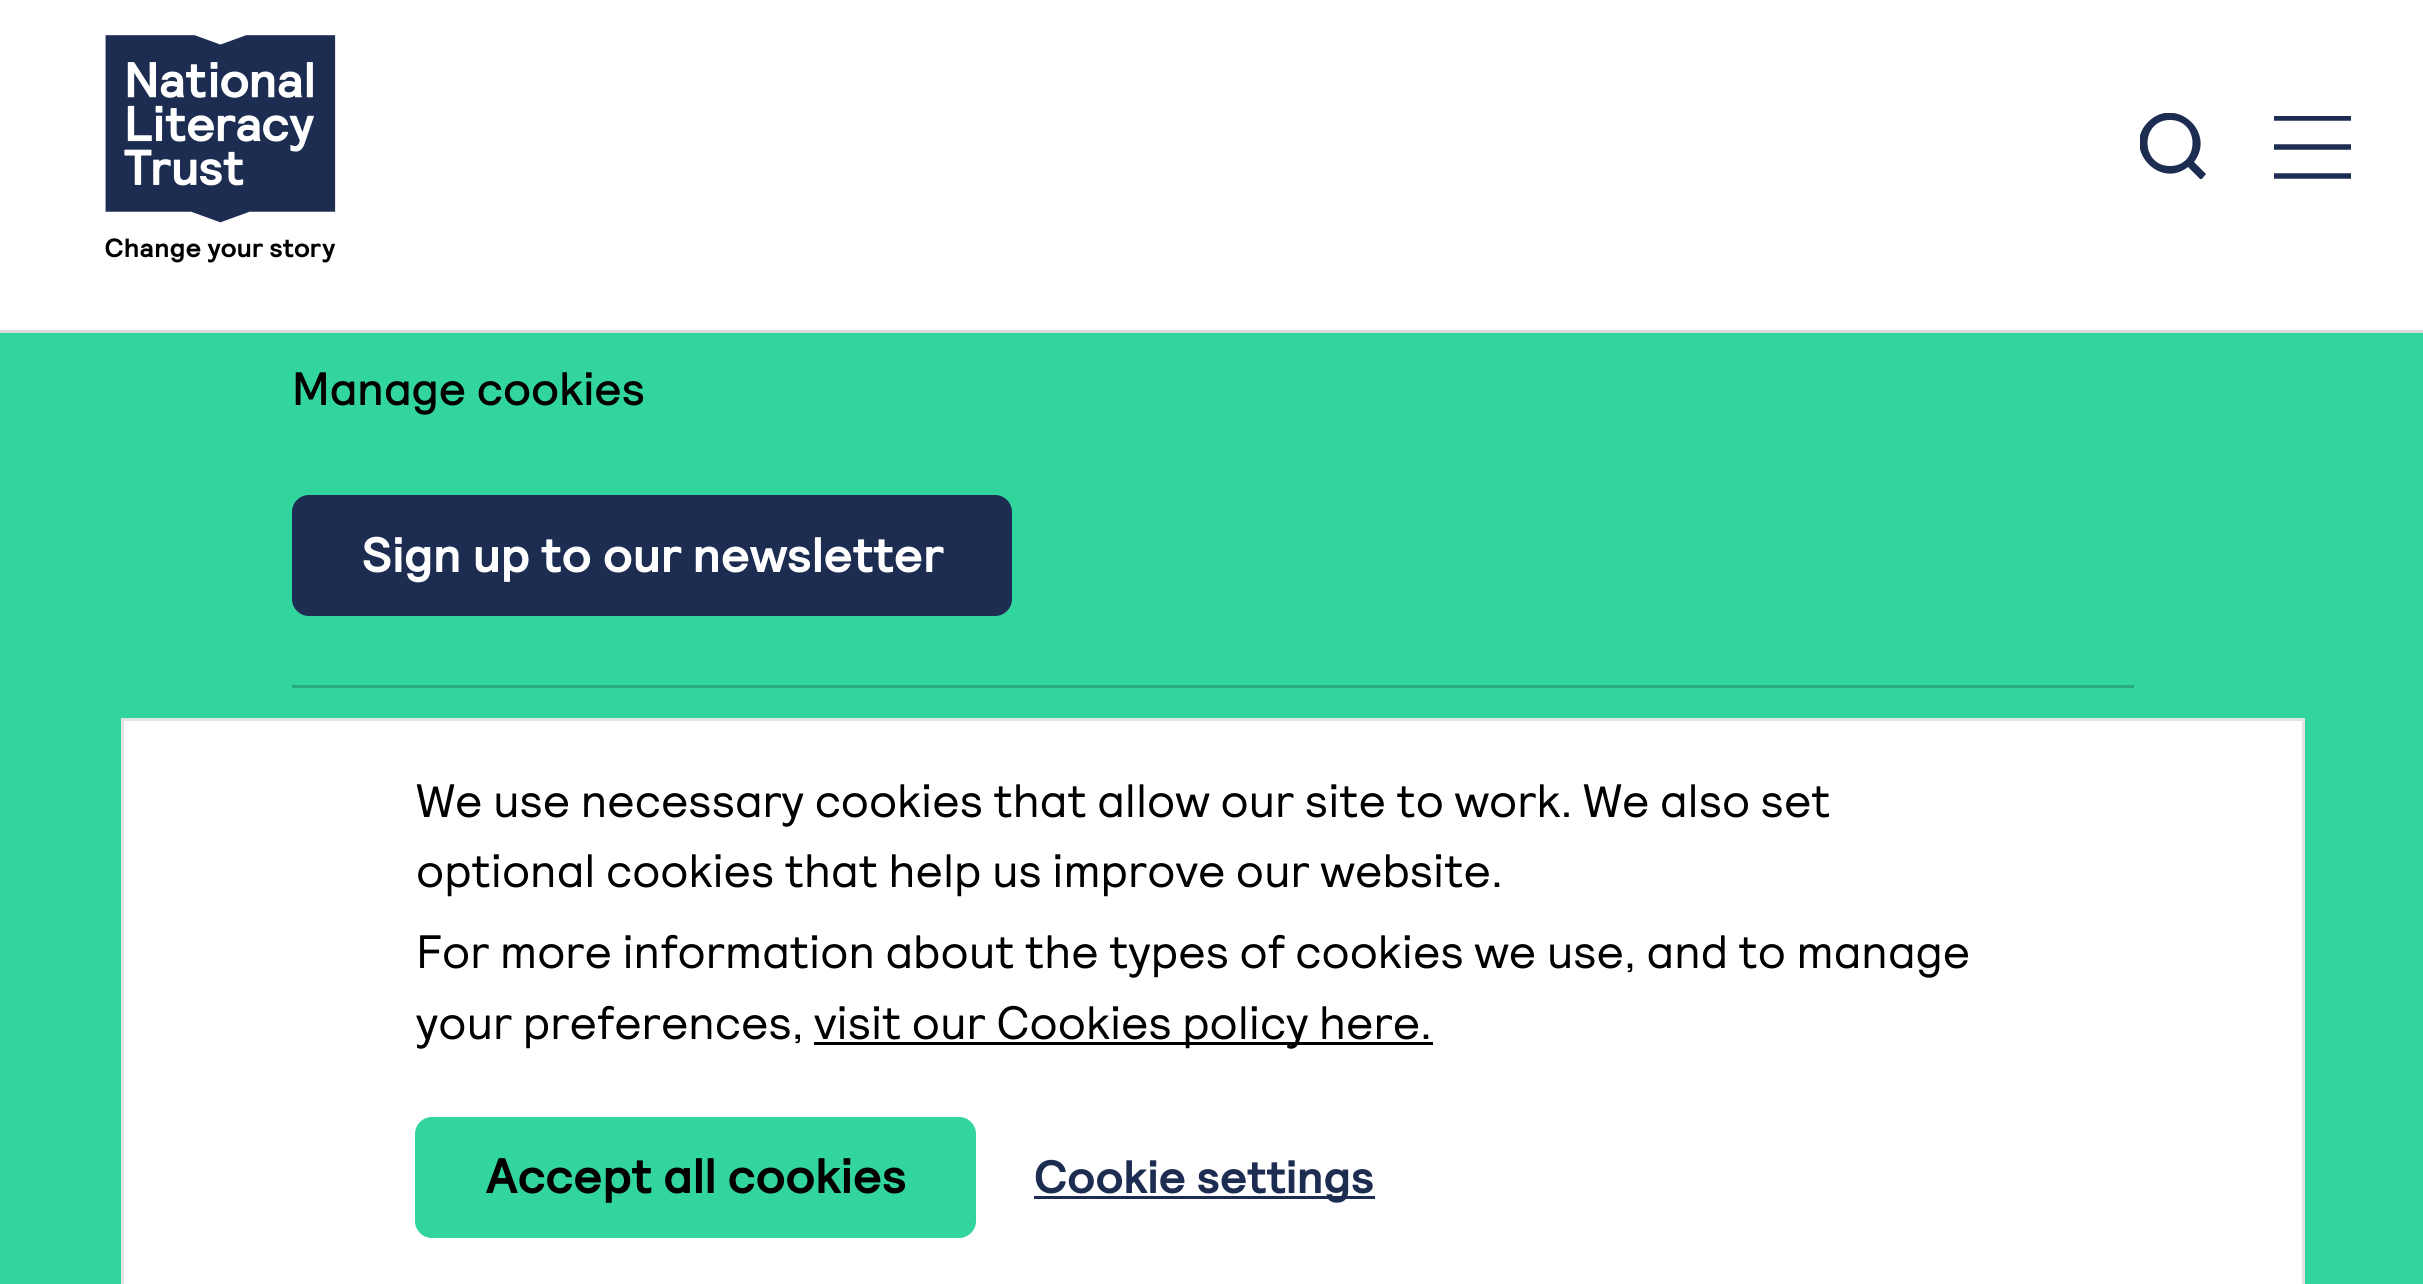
#include <cairo.h>
#include <math.h>
#include <stddef.h>

static cairo_t *c;
static void C(unsigned color){cairo_set_source_rgb(c, (color >> 16) / 255.0, (color >> 8 & 255) / 255.0, (color & 255) / 255.0);}
static void F(const char *family, double size, int italic, int bold){cairo_select_font_face(c, family, italic ? CAIRO_FONT_SLANT_ITALIC : CAIRO_FONT_SLANT_NORMAL,bold ? CAIRO_FONT_WEIGHT_BOLD : CAIRO_FONT_WEIGHT_NORMAL);cairo_set_font_size(c, size);}
static void T(double x, double y, const char *s){cairo_move_to(c, x, y);cairo_show_text(c, s);}
static void R(double x, double y, double w, double h){cairo_rectangle(c, x, y, w, h);cairo_fill(c);}
static void Q(double x, double y, double w, double h, double r){cairo_new_sub_path(c);cairo_arc(c, x + w - r, y + h - r, r, 0, M_PI / 2);cairo_arc(c, x + r, y + h - r, r, M_PI / 2, M_PI);cairo_arc(c, x + r, y + r, r, M_PI, 1.5 * M_PI);cairo_arc(c, x + w - r, y + r, r, 1.5 * M_PI, 2 * M_PI);cairo_close_path(c);}
static void I(const char *path, double x, double y, double w, double h){cairo_surface_t *image = cairo_image_surface_create_from_png(path);cairo_save(c);cairo_set_source_surface(c, image, x, y);cairo_rectangle(c, x, y, w, h);cairo_fill(c);cairo_restore(c);cairo_surface_destroy(image);}
int main(void) {
cairo_surface_t *surface = cairo_image_surface_create(CAIRO_FORMAT_RGB24, 2423, 1284);
c = cairo_create(surface);
cairo_font_options_t *options = cairo_font_options_create();
cairo_font_options_set_hint_metrics(options, CAIRO_HINT_METRICS_OFF);
cairo_font_options_set_hint_style(options, CAIRO_HINT_STYLE_NONE);
cairo_set_font_options(c, options);
cairo_set_miter_limit(c, 4);
C(0x33d59f);
cairo_paint(c);
C(0xffffff);
R(0,0,2423,330);
C(0xdadadb);
R(0,330,2423,3);
I("1.png",105,35,231,228);
cairo_save(c);
cairo_rectangle(c,2140,113,66,66);
cairo_clip(c);
C(0x1d2d52);
cairo_set_fill_rule(c,CAIRO_FILL_RULE_EVEN_ODD);
cairo_new_path(c);
cairo_move_to(c,2206,174);
cairo_line_to(c,2194,162);
cairo_curve_to(c,2217,132,2175,95,2148,122);
cairo_curve_to(c,2122,148,2159,190,2188,167);
cairo_line_to(c,2201,180);
cairo_close_path(c);
cairo_move_to(c,2170,166);
cairo_curve_to(c,2140,166,2140,120,2170,120);
cairo_curve_to(c,2200,120,2200,166,2170,166);
cairo_close_path(c);
cairo_fill(c);
cairo_restore(c);
cairo_save(c);
cairo_rectangle(c,2274,116,77,63);
cairo_clip(c);
cairo_new_path(c);
cairo_move_to(c,2274,118);
cairo_line_to(c,2351,118);
cairo_move_to(c,2274,147);
cairo_line_to(c,2351,147);
cairo_move_to(c,2274,176);
cairo_line_to(c,2351,176);
C(0x1d2d52);
cairo_set_line_width(c,5.5);
cairo_stroke(c);
cairo_restore(c);
C(0x29aa7f);
R(292,685,1842,3);
F("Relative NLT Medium",46.75,0,0);
C(0x000000);
T(292,405,"Manage cookies");
C(0x1d2d52);
Q(292,495,720,121,17);
cairo_fill(c);
F("Relative NLT",49.75,0,1);
C(0xffffff);
T(362,572,"Sign up to our newsletter");
R(124,721,2178,563);
C(0xe3e3e3);
R(121,718,2184,3);
R(2302,718,3,566);
R(121,718,3,566);
F("Relative NLT",46.75,0,0);
C(0x000000);
T(416,817,"We use necessary cookies that allow our site to work. We also set");
T(416,887,"optional cookies that help us improve our website.");
T(416,968,"For more information about the types of cookies we use, and to manage");
T(416,1039,"your preferences,");
R(814,1042,619,3);
T(814,1039,"visit our Cookies policy here.");
C(0x33d59f);
Q(415,1117,561,121,17);
cairo_fill(c);
F("Relative NLT",49.75,0,1);
C(0x000000);
T(486,1193,"Accept all cookies");
C(0x1d2d52);
R(1034,1196,341,3);
F("Relative NLT",46.75,0,1);
T(1034,1193,"Cookie settings");
cairo_surface_write_to_png(surface, "o.png");
cairo_font_options_destroy(options);
cairo_destroy(c);
cairo_surface_destroy(surface);
return 0;
}
